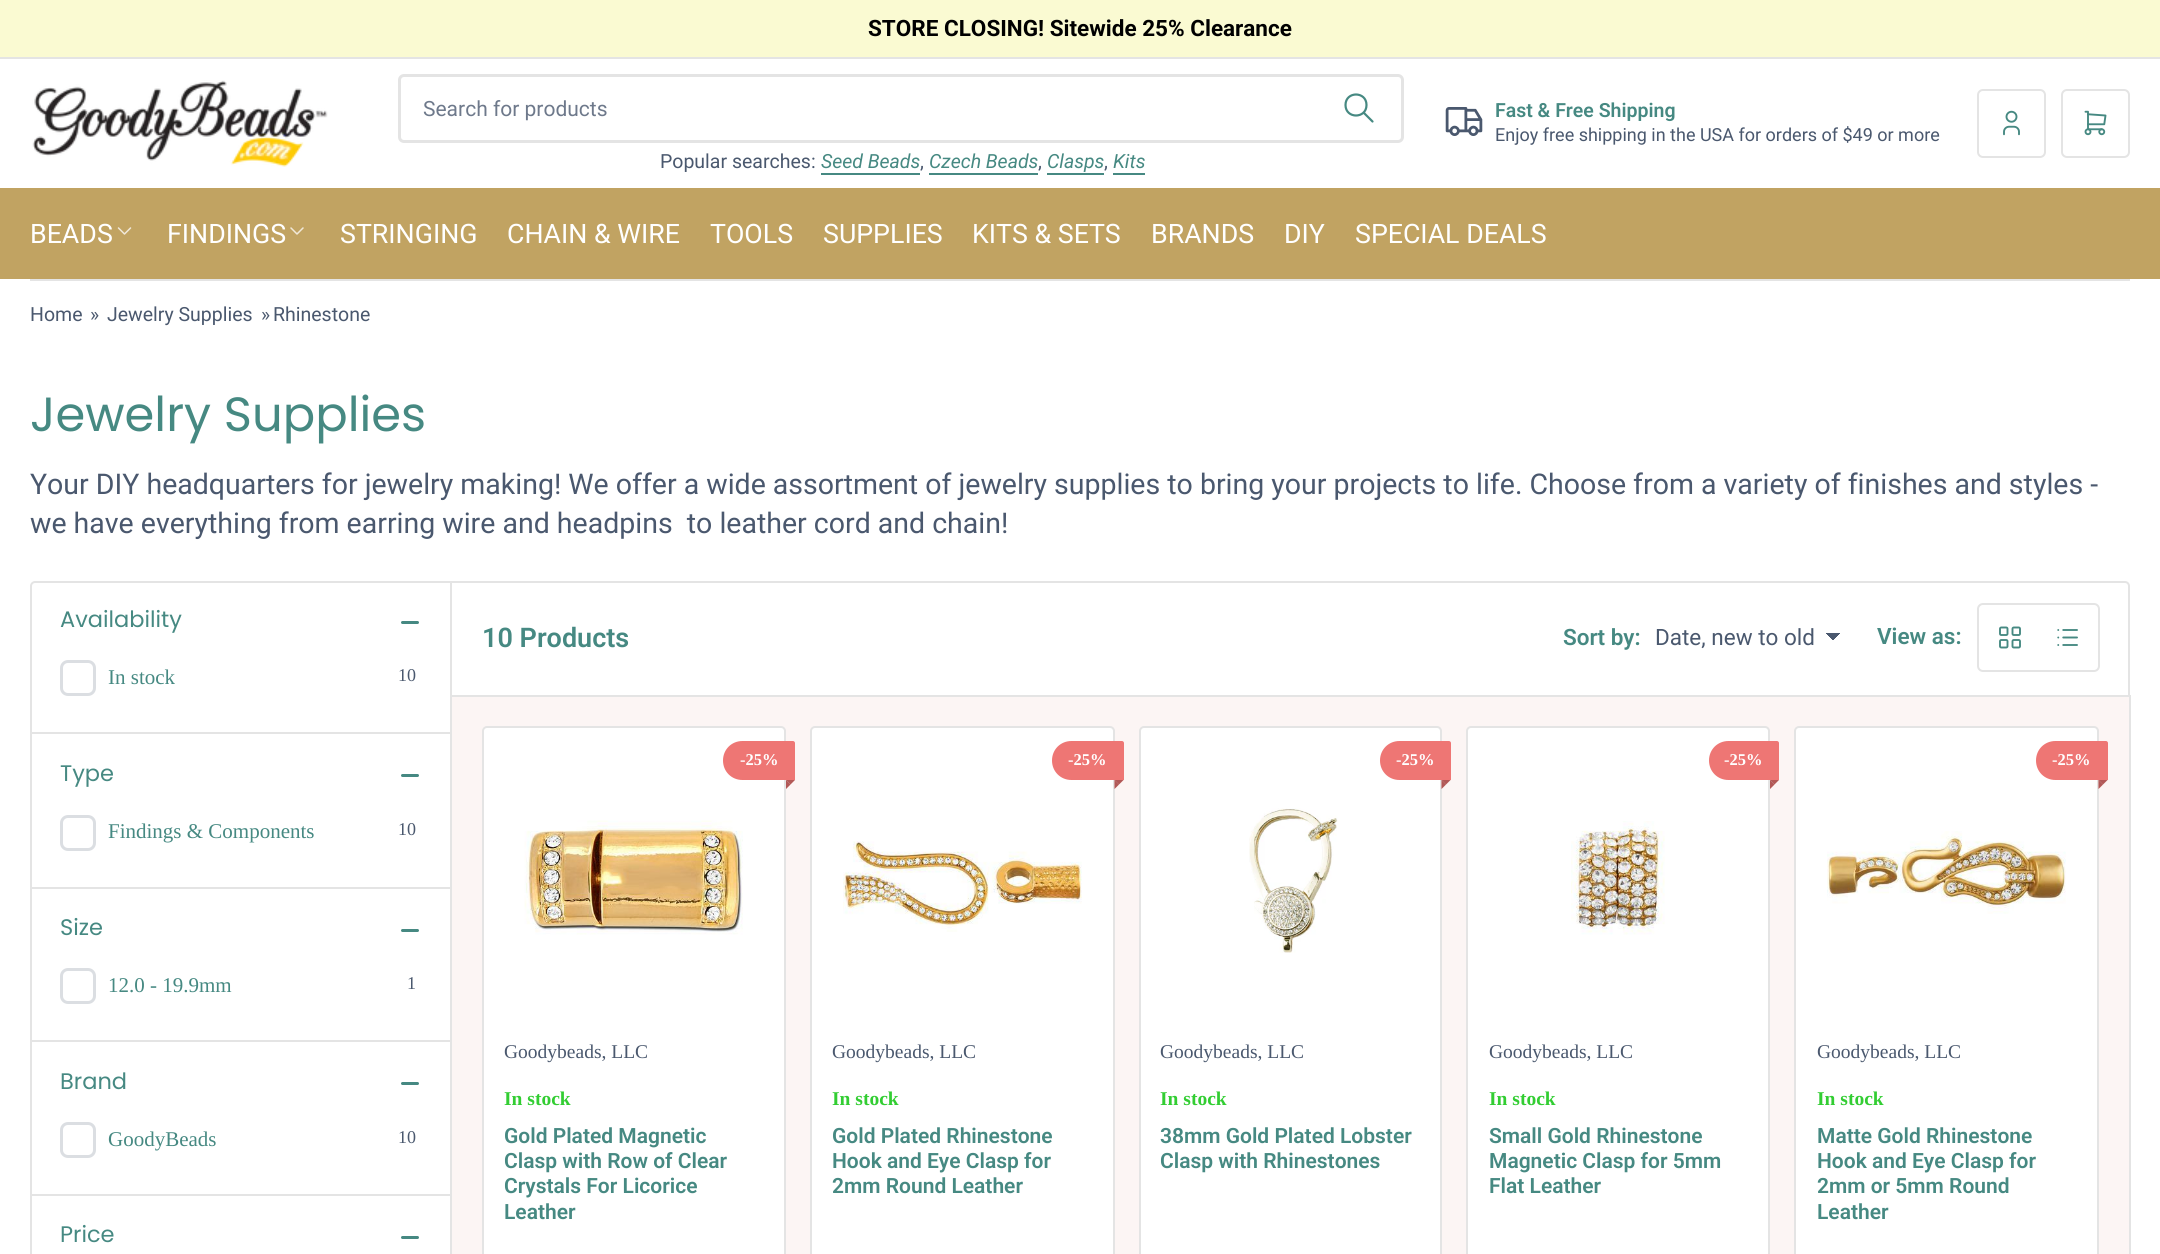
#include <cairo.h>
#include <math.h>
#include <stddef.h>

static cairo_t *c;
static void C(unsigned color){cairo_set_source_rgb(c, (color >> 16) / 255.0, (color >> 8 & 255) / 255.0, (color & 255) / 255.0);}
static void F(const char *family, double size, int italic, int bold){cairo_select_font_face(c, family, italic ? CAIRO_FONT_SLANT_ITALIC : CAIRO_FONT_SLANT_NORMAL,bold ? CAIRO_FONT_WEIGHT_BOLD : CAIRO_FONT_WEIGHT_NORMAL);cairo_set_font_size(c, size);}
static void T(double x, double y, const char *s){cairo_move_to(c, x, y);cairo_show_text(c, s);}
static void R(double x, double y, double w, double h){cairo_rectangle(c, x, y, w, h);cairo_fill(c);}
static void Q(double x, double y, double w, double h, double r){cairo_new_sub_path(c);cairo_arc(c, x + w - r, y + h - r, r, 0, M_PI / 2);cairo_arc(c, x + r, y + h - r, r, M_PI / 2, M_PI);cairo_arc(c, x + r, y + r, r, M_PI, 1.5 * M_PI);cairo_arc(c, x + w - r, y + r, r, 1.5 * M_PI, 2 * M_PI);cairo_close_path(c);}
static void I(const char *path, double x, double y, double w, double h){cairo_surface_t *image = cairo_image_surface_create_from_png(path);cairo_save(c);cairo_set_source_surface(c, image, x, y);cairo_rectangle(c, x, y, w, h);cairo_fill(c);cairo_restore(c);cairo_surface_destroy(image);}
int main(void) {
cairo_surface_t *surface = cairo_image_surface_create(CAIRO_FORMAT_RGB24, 2160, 1254);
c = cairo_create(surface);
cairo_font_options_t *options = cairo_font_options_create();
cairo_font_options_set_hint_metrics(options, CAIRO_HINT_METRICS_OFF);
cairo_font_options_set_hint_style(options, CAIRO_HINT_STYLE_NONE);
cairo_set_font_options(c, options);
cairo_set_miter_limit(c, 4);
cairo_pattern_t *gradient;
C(0xffffff);
cairo_paint(c);
C(0xe4e4e4);
R(0,57,2160,2);
C(0xfafad2);
R(0,0,2160,57);
F("Roboto",22.5,0,1);
C(0x000000);
T(868,36,"STORE CLOSING! Sitewide 25% Clearance");
I("1.png",32,80,296,87);
Q(399.5,75.5,1003,66,4.5);
C(0xe4e4e4);
cairo_set_line_width(c,3);
cairo_stroke(c);
F("Roboto",21,0,0);
C(0x6e798b);
T(423,116,"Search for products");
cairo_new_path(c);
cairo_move_to(c,1345.5,105);
cairo_curve_to(c,1345.5,119,1366.5,119,1366.5,105);
cairo_curve_to(c,1366.5,91,1345.5,91,1345.5,105);
cairo_move_to(c,1372.5,121.5);
cairo_line_to(c,1363.5,112.5);
C(0x468982);
cairo_set_line_width(c,2.2);
cairo_set_line_cap(c,CAIRO_LINE_CAP_ROUND);
cairo_set_line_join(c,CAIRO_LINE_JOIN_ROUND);
cairo_stroke(c);
F("Roboto",19.5,0,0);
C(0x4a586e);
T(660,168,"Popular searches:");
F("Roboto",19.5,1,0);
C(0x468982);
T(821,168,"Seed Beads");
R(821,173,99,2);
F("Roboto",19.5,0,0);
C(0x4a586e);
T(920,168,",");
F("Roboto",19.5,1,0);
C(0x468982);
T(929,168,"Czech Beads");
R(929,173,109,2);
F("Roboto",19.5,0,0);
C(0x4a586e);
T(1038,168,",");
F("Roboto",19.5,1,0);
C(0x468982);
T(1047,168,"Clasps");
R(1047,173,57,2);
F("Roboto",19.5,0,0);
C(0x4a586e);
T(1104,168,",");
F("Roboto",19.5,1,0);
C(0x468982);
T(1113,168,"Kits");
R(1113,173,32,2);
I("2.png",1445,107,38,29);
F("Roboto SemiBold",19.5,0,0);
T(1495,117,"Fast & Free Shipping");
F("Roboto",18,0,0);
C(0x4a586e);
T(1495,141,"Enjoy free shipping in the USA for orders of $49 or more");
Q(1978,90,67,67,5);
C(0xe4e4e4);
cairo_set_line_width(c,2);
cairo_set_line_cap(c,CAIRO_LINE_CAP_BUTT);
cairo_set_line_join(c,CAIRO_LINE_JOIN_MITER);
cairo_stroke(c);
I("3.png",2003,110,17,26);
Q(2062,90,67,67,5);
cairo_stroke(c);
I("4.png",2084,110,23,26);
C(0xc1a362);
R(0,188,2160,91);
F("Roboto",26.75,0,0);
C(0xffffff);
T(30,243,"BEADS");
cairo_new_path(c);
cairo_move_to(c,118.5,228);
cairo_line_to(c,124.5,234);
cairo_line_to(c,130.5,228);
C(0xf0e8d8);
cairo_set_line_width(c,1.5);
cairo_set_line_cap(c,CAIRO_LINE_CAP_ROUND);
cairo_set_line_join(c,CAIRO_LINE_JOIN_ROUND);
cairo_stroke(c);
C(0xffffff);
T(167,243,"FINDINGS");
cairo_new_path(c);
cairo_move_to(c,291,228);
cairo_line_to(c,297,234);
cairo_line_to(c,303,228);
C(0xf0e8d8);
cairo_stroke(c);
C(0xffffff);
T(340,243,"STRINGING");
T(507,243,"CHAIN & WIRE");
T(710,243,"TOOLS");
T(823,243,"SUPPLIES");
T(972,243,"KITS & SETS");
T(1151,243,"BRANDS");
T(1284,243,"DIY");
T(1355,243,"SPECIAL DEALS");
C(0xe4e4e4);
R(30,279,2100,2);
F("Roboto",19.5,0,0);
C(0x4a586e);
T(30,321,"Home");
T(90,321,"»");
T(107,321,"Jewelry Supplies");
T(261,321,"»");
T(273,321,"Rhinestone");
F("Poppins",48,0,0);
C(0x468982);
T(30,431,"Jewelry Supplies");
F("Roboto",28.5,0,0);
C(0x4a586e);
T(30,494,"Your DIY headquarters for jewelry making! We offer a wide assortment of jewelry supplies to bring your projects to life. Choose from a variety of finishes and styles -");
T(30,533,"we have everything from earring wire and headpins  to leather cord and chain!");
Q(31,582,2098,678,4);
C(0xe4e4e4);
cairo_set_line_width(c,2);
cairo_set_line_cap(c,CAIRO_LINE_CAP_BUTT);
cairo_set_line_join(c,CAIRO_LINE_JOIN_MITER);
cairo_stroke(c);
R(30,732,420,2);
F("Poppins",22.5,0,0);
C(0x468982);
T(60,627,"Availability");
Q(401,621,10,3,1.5);
cairo_fill(c);
Q(407,621,12,3,1.5);
cairo_fill(c);
Q(61.5,661.5,33,33,6.5);
C(0xdbdee2);
cairo_set_line_width(c,3);
cairo_stroke(c);
F("Liberation Serif",21,0,0);
C(0x468982);
T(108,684,"In stock");
F("Liberation Serif",18,0,0);
C(0x4a586e);
T(398,681,"10");
C(0xe4e4e4);
R(30,887,420,2);
F("Poppins",22.5,0,0);
C(0x468982);
T(60,781,"Type");
Q(401,774,10,3,1.5);
cairo_fill(c);
Q(407,774,12,3,1.5);
cairo_fill(c);
Q(61.5,816.5,33,33,6.5);
C(0xdbdee2);
cairo_stroke(c);
F("Liberation Serif",21,0,0);
C(0x468982);
T(108,838,"Findings & Components");
F("Liberation Serif",18,0,0);
C(0x4a586e);
T(398,835,"10");
C(0xe4e4e4);
R(30,1040,420,2);
F("Poppins",22.5,0,0);
C(0x468982);
T(60,935,"Size");
Q(401,929,10,3,1.5);
cairo_fill(c);
Q(407,929,12,3,1.5);
cairo_fill(c);
Q(61.5,969.5,33,33,6.5);
C(0xdbdee2);
cairo_stroke(c);
F("Liberation Serif",21,0,0);
C(0x468982);
T(108,992,"12.0 - 19.9mm");
F("Liberation Serif",18,0,0);
C(0x4a586e);
T(407,989,"1");
C(0xe4e4e4);
R(30,1194,420,2);
F("Poppins",22.5,0,0);
C(0x468982);
T(60,1089,"Brand");
Q(401,1082,10,3,1.5);
cairo_fill(c);
Q(407,1082,12,3,1.5);
cairo_fill(c);
Q(61.5,1123.5,33,33,6.5);
C(0xdbdee2);
cairo_stroke(c);
F("Liberation Serif",21,0,0);
C(0x468982);
T(108,1146,"GoodyBeads");
F("Liberation Serif",18,0,0);
C(0x4a586e);
T(398,1143,"10");
F("Poppins",22.5,0,0);
C(0x468982);
T(60,1242,"Price");
Q(401,1236,10,3,1.5);
cairo_fill(c);
Q(407,1236,12,3,1.5);
cairo_fill(c);
C(0xe4e4e4);
R(450,581,2,673);
F("Roboto SemiBold",27,0,0);
C(0x468982);
T(482,647,"10 Products");
F("Roboto SemiBold",22.5,0,0);
T(1563,645,"Sort by:");
gradient = cairo_pattern_create_linear(1833,633,1841,641);
cairo_pattern_add_color_stop_rgba(gradient,.5,0.29,0.345,0.431,1);
cairo_pattern_add_color_stop_rgba(gradient,.5,1,1,1,1);
cairo_set_source(c,gradient);
cairo_pattern_destroy(gradient);
R(1833,633,8,7);
gradient = cairo_pattern_create_linear(1826,641,1833,633);
cairo_pattern_add_color_stop_rgba(gradient,.5,1,1,1,1);
cairo_pattern_add_color_stop_rgba(gradient,.5,0.29,0.345,0.431,1);
cairo_set_source(c,gradient);
cairo_pattern_destroy(gradient);
R(1826,633,7,8);
F("Roboto",22.5,0,0);
C(0x4a586e);
T(1655,645,"Date, new to old");
F("Roboto SemiBold",22.5,0,0);
C(0x468982);
T(1877,644,"View as:");
Q(1978,604,121,67,5);
C(0xe4e4e4);
cairo_set_line_width(c,2);
cairo_stroke(c);
I("5.png",1999,626,22,23);
I("6.png",2057,629,21,17);
C(0xfcf5f4);
R(452,697,1677,557);
C(0xe4e4e4);
R(452,695,1678,2);
R(2130,695,1,559);
C(0xffffff);
Q(483,727,302,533,4);
cairo_fill_preserve(c);
C(0xe4e4e4);
cairo_stroke(c);
C(0xee7674);
cairo_new_path(c);
cairo_move_to(c,742.5,741);
cairo_line_to(c,793,741);
cairo_curve_to(c,794,741,795,742,795,743);
cairo_line_to(c,795,780);
cairo_line_to(c,742.5,780);
cairo_curve_to(c,731.5,780,723,771.5,723,760.5);
cairo_curve_to(c,723,749.5,731.5,741,742.5,741);
cairo_close_path(c);
cairo_fill(c);
F("Liberation Serif",16.5,0,1);
C(0xffffff);
T(740,765,"-25%");
C(0xee7674);
cairo_new_path(c);
cairo_move_to(c,786,789);
cairo_line_to(c,786,780);
cairo_line_to(c,790.5,784.5);
cairo_close_path(c);
cairo_fill(c);
C(0xb35957);
cairo_new_path(c);
cairo_move_to(c,786,780);
cairo_line_to(c,795,780);
cairo_line_to(c,790.5,784.5);
cairo_close_path(c);
cairo_fill(c);
cairo_set_source_rgba(c,0,0,0,0.25);
cairo_new_path(c);
cairo_move_to(c,786,789);
cairo_line_to(c,786,780);
cairo_line_to(c,790.5,784.5);
cairo_close_path(c);
cairo_fill(c);
I("7.png",524,820,219,115);
F("Liberation Serif",19.5,0,0);
C(0x4a586e);
T(504,1058,"Goodybeads, LLC");
F("Liberation Serif",19.5,0,1);
C(0x32cd32);
T(504,1105,"In stock");
F("Roboto SemiBold",21,0,0);
C(0x468982);
T(504,1143,"Gold Plated Magnetic");
T(504,1168,"Clasp with Row of Clear");
T(504,1193,"Crystals For Licorice");
T(504,1219,"Leather");
C(0xffffff);
Q(811,727,303,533,4);
cairo_fill_preserve(c);
C(0xe4e4e4);
cairo_stroke(c);
C(0xee7674);
cairo_new_path(c);
cairo_move_to(c,1071.5,741);
cairo_line_to(c,1122,741);
cairo_curve_to(c,1123,741,1124,742,1124,743);
cairo_line_to(c,1124,780);
cairo_line_to(c,1071.5,780);
cairo_curve_to(c,1060.5,780,1052,771.5,1052,760.5);
cairo_curve_to(c,1052,749.5,1060.5,741,1071.5,741);
cairo_close_path(c);
cairo_fill(c);
F("Liberation Serif",16.5,0,1);
C(0xffffff);
T(1068,765,"-25%");
C(0xee7674);
cairo_new_path(c);
cairo_move_to(c,1114.5,780);
cairo_line_to(c,1123.5,780);
cairo_line_to(c,1119,784.5);
cairo_close_path(c);
cairo_fill(c);
cairo_new_path(c);
cairo_move_to(c,1114.5,789);
cairo_line_to(c,1114.5,780);
cairo_line_to(c,1119,784.5);
cairo_close_path(c);
cairo_fill(c);
cairo_set_source_rgba(c,0,0,0,0.25);
cairo_new_path(c);
cairo_move_to(c,1114.5,780);
cairo_line_to(c,1123.5,780);
cairo_line_to(c,1119,784.5);
cairo_close_path(c);
cairo_fill(c);
cairo_new_path(c);
cairo_move_to(c,1114.5,789);
cairo_line_to(c,1114.5,780);
cairo_line_to(c,1119,784.5);
cairo_close_path(c);
cairo_fill(c);
I("8.png",843,841,239,91);
F("Liberation Serif",19.5,0,0);
C(0x4a586e);
T(832,1058,"Goodybeads, LLC");
F("Liberation Serif",19.5,0,1);
C(0x32cd32);
T(832,1105,"In stock");
F("Roboto SemiBold",21,0,0);
C(0x468982);
T(832,1143,"Gold Plated Rhinestone");
T(832,1168,"Hook and Eye Clasp for");
T(832,1193,"2mm Round Leather");
C(0xffffff);
Q(1140,727,301,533,4);
cairo_fill_preserve(c);
C(0xe4e4e4);
cairo_stroke(c);
C(0xee7674);
cairo_new_path(c);
cairo_move_to(c,1399.5,741);
cairo_line_to(c,1449,741);
cairo_curve_to(c,1450,741,1451,742,1451,743);
cairo_line_to(c,1451,780);
cairo_line_to(c,1399.5,780);
cairo_curve_to(c,1388.5,780,1380,771.5,1380,760.5);
cairo_curve_to(c,1380,749.5,1388.5,741,1399.5,741);
cairo_close_path(c);
cairo_fill(c);
F("Liberation Serif",16.5,0,1);
C(0xffffff);
T(1396,765,"-25%");
C(0xee7674);
cairo_new_path(c);
cairo_move_to(c,1441.5,780);
cairo_line_to(c,1450.5,780);
cairo_line_to(c,1446,784.5);
cairo_close_path(c);
cairo_fill(c);
cairo_new_path(c);
cairo_move_to(c,1441.5,789);
cairo_line_to(c,1441.5,780);
cairo_line_to(c,1446,784.5);
cairo_close_path(c);
cairo_fill(c);
cairo_set_source_rgba(c,0,0,0,0.25);
cairo_new_path(c);
cairo_move_to(c,1441.5,780);
cairo_line_to(c,1450.5,780);
cairo_line_to(c,1446,784.5);
cairo_close_path(c);
cairo_fill(c);
cairo_new_path(c);
cairo_move_to(c,1441.5,789);
cairo_line_to(c,1441.5,780);
cairo_line_to(c,1446,784.5);
cairo_close_path(c);
cairo_fill(c);
I("9.png",1249,808,89,145);
F("Liberation Serif",19.5,0,0);
C(0x4a586e);
T(1160,1058,"Goodybeads, LLC");
F("Liberation Serif",19.5,0,1);
C(0x32cd32);
T(1160,1105,"In stock");
F("Roboto SemiBold",21,0,0);
C(0x468982);
T(1160,1143,"38mm Gold Plated Lobster");
T(1160,1168,"Clasp with Rhinestones");
C(0xffffff);
Q(1467,727,302,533,4);
cairo_fill_preserve(c);
C(0xe4e4e4);
cairo_stroke(c);
C(0xee7674);
cairo_new_path(c);
cairo_move_to(c,1728.5,741);
cairo_line_to(c,1777,741);
cairo_curve_to(c,1778,741,1779,742,1779,743);
cairo_line_to(c,1779,780);
cairo_line_to(c,1728.5,780);
cairo_curve_to(c,1717.5,780,1709,771.5,1709,760.5);
cairo_curve_to(c,1709,749.5,1717.5,741,1728.5,741);
cairo_close_path(c);
cairo_fill(c);
F("Liberation Serif",16.5,0,1);
C(0xffffff);
T(1724,765,"-25%");
C(0xee7674);
cairo_new_path(c);
cairo_move_to(c,1770,789);
cairo_line_to(c,1770,780);
cairo_line_to(c,1774.5,784.5);
cairo_close_path(c);
cairo_fill(c);
C(0xb35957);
cairo_new_path(c);
cairo_move_to(c,1770,780);
cairo_line_to(c,1779,780);
cairo_line_to(c,1774.5,784.5);
cairo_close_path(c);
cairo_fill(c);
cairo_set_source_rgba(c,0,0,0,0.25);
cairo_new_path(c);
cairo_move_to(c,1770,789);
cairo_line_to(c,1770,780);
cairo_line_to(c,1774.5,784.5);
cairo_close_path(c);
cairo_fill(c);
I("10.png",1571,821,94,114);
F("Liberation Serif",19.5,0,0);
C(0x4a586e);
T(1489,1058,"Goodybeads, LLC");
F("Liberation Serif",19.5,0,1);
C(0x32cd32);
T(1489,1105,"In stock");
F("Roboto SemiBold",21,0,0);
C(0x468982);
T(1489,1143,"Small Gold Rhinestone");
T(1489,1168,"Magnetic Clasp for 5mm");
T(1489,1193,"Flat Leather");
C(0xffffff);
Q(1795,727,303,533,4);
cairo_fill_preserve(c);
C(0xe4e4e4);
cairo_stroke(c);
C(0xee7674);
cairo_new_path(c);
cairo_move_to(c,2055.5,741);
cairo_line_to(c,2106,741);
cairo_curve_to(c,2107,741,2108,742,2108,743);
cairo_line_to(c,2108,780);
cairo_line_to(c,2055.5,780);
cairo_curve_to(c,2044.5,780,2036,771.5,2036,760.5);
cairo_curve_to(c,2036,749.5,2044.5,741,2055.5,741);
cairo_close_path(c);
cairo_fill(c);
F("Liberation Serif",16.5,0,1);
C(0xffffff);
T(2052,765,"-25%");
C(0xee7674);
cairo_new_path(c);
cairo_move_to(c,2098.5,780);
cairo_line_to(c,2107.5,780);
cairo_line_to(c,2103,784.5);
cairo_close_path(c);
cairo_fill(c);
cairo_new_path(c);
cairo_move_to(c,2098.5,789);
cairo_line_to(c,2098.5,780);
cairo_line_to(c,2103,784.5);
cairo_close_path(c);
cairo_fill(c);
cairo_set_source_rgba(c,0,0,0,0.25);
cairo_new_path(c);
cairo_move_to(c,2098.5,780);
cairo_line_to(c,2107.5,780);
cairo_line_to(c,2103,784.5);
cairo_close_path(c);
cairo_fill(c);
cairo_new_path(c);
cairo_move_to(c,2098.5,789);
cairo_line_to(c,2098.5,780);
cairo_line_to(c,2103,784.5);
cairo_close_path(c);
cairo_fill(c);
I("11.png",1827,831,239,83);
F("Liberation Serif",19.5,0,0);
C(0x4a586e);
T(1817,1058,"Goodybeads, LLC");
F("Liberation Serif",19.5,0,1);
C(0x32cd32);
T(1817,1105,"In stock");
F("Roboto SemiBold",21,0,0);
C(0x468982);
T(1817,1143,"Matte Gold Rhinestone");
T(1817,1168,"Hook and Eye Clasp for");
T(1817,1193,"2mm or 5mm Round");
T(1817,1219,"Leather");
cairo_surface_write_to_png(surface, "o.png");
cairo_font_options_destroy(options);
cairo_destroy(c);
cairo_surface_destroy(surface);
return 0;
}
